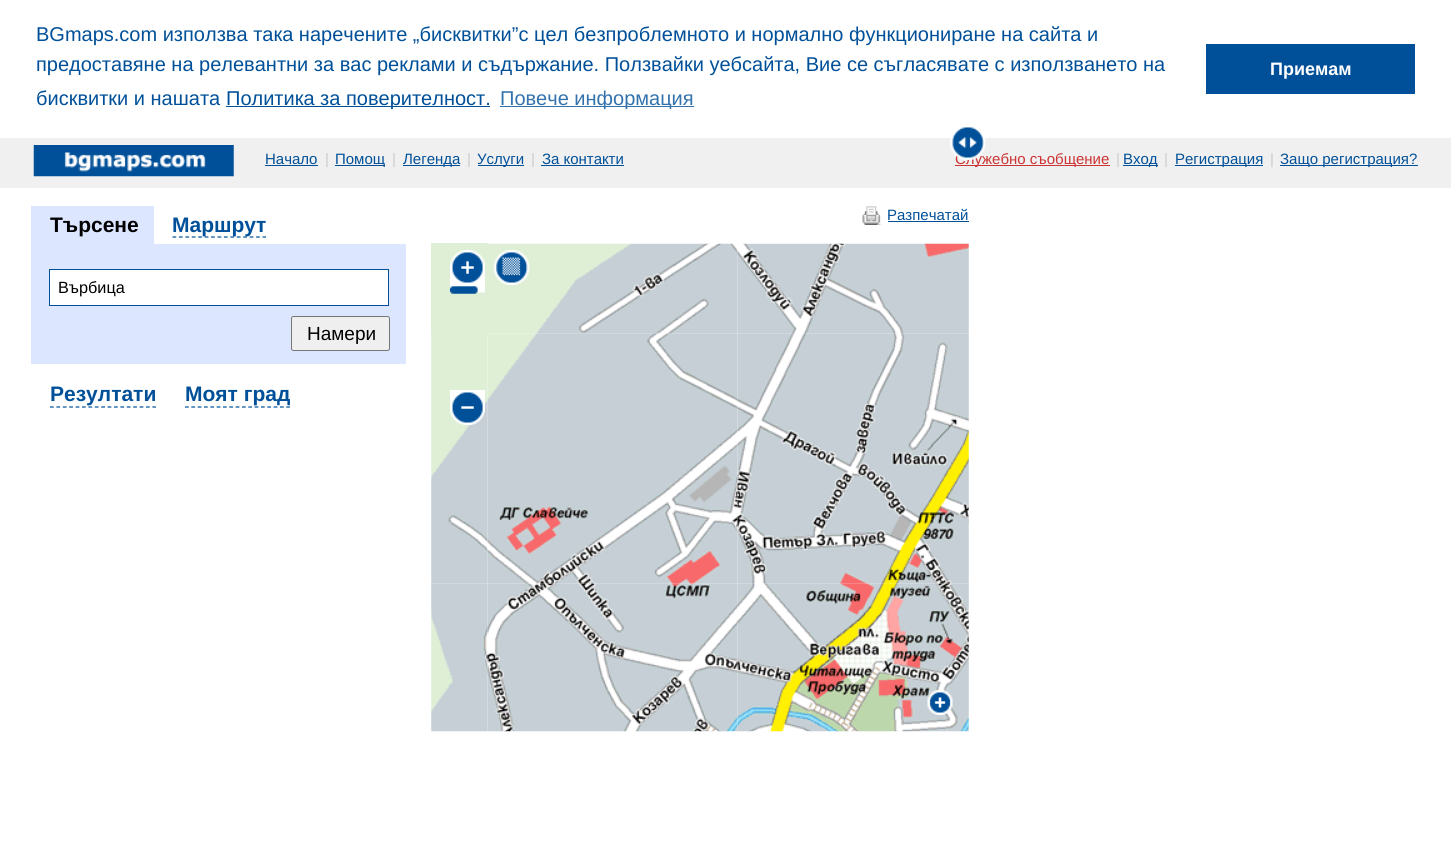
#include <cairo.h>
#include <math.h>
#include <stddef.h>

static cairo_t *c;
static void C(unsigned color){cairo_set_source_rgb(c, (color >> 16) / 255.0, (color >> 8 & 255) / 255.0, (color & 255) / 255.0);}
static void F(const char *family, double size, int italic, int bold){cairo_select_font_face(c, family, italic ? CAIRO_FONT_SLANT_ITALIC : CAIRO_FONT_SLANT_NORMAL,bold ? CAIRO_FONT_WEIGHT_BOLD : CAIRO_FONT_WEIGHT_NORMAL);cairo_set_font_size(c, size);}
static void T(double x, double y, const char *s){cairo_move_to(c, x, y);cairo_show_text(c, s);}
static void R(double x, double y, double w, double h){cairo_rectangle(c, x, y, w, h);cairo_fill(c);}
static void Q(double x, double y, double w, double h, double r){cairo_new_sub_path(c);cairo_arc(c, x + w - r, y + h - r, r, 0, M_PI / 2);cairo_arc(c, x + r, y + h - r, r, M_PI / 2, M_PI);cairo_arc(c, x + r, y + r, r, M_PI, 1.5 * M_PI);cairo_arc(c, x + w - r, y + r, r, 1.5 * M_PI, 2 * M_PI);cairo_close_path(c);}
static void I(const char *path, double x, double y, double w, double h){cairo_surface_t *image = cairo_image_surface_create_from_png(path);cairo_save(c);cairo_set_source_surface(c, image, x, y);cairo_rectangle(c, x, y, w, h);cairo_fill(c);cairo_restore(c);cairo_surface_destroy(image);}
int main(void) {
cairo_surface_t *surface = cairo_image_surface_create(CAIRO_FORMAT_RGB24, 1451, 860);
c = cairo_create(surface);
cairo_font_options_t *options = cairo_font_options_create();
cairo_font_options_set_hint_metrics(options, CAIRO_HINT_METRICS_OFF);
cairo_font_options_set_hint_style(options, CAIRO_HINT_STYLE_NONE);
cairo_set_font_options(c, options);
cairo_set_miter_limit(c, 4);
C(0xffffff);
cairo_paint(c);
F("Liberation Sans",20,0,0);
C(0x005099);
T(36,41,"BGmaps.com използва така наречените „бисквитки”с цел безпроблемното и нормално функциониране на сайта и");
T(36,71,"предоставяне на релевантни за вас реклами и съдържание. Ползвайки уебсайта, Вие се съгласявате с използването на");
T(36,105,"бисквитки и нашата");
R(226,106,264,1);
T(226,105,"Политика за поверителност.");
C(0x3373ad);
R(500,106,194,1);
T(500,105,"Повече информация");
C(0x005099);
R(1206,44,209,50);
F("Liberation Sans",18,0,1);
C(0xffffff);
T(1270,75,"Приемам");
C(0xf0f0f0);
R(0,138,1451,50);
I("1.png",33,145,201,32);
F("Liberation Sans",15,0,0);
C(0x005099);
T(265,164,"Начало");
R(265,165,53,1);
C(0xcccccc);
T(325,164,"|");
C(0x005099);
R(335,165,50,1);
T(335,164,"Помощ");
C(0xcccccc);
T(392,164,"|");
C(0x005099);
R(403,165,57,1);
T(403,164,"Легенда");
C(0xcccccc);
T(467,164,"|");
C(0x005099);
R(478,165,46,1);
T(477,164,"Услуги");
C(0xcccccc);
T(531,164,"|");
C(0x005099);
T(542,164,"За контакти");
R(541,165,83,1);
C(0xcc3333);
R(955,165,155,1);
T(955,164,"Служебно съобщение");
C(0xcccccc);
T(1116,164,"|");
C(0x005099);
R(1123,165,35,1);
T(1123,164,"Вход");
C(0xcccccc);
T(1164,164,"|");
C(0x005099);
R(1175,165,88,1);
T(1175,164,"Регистрация");
C(0xcccccc);
T(1270,164,"|");
C(0x005099);
R(1280,165,138,1);
T(1280,164,"Защо регистрация?");
I("2.png",950,126,36,34);
I("3.png",958,137,19,11);
I("4.png",862,206,20,19);
T(887,220,"Разпечатай");
R(888,221,81,1);
C(0xdce6ff);
R(31,206,123,38);
F("Liberation Sans",21,0,1);
C(0x000000);
T(50,232,"Търсене");
cairo_new_path(c);
cairo_move_to(c,172.5,237);
cairo_line_to(c,266,237);
C(0x005099);
cairo_set_line_width(c,1.2);
cairo_set_dash(c,(double[]){3.75,2.68},2,0);
cairo_stroke(c);
T(172,232,"Маршрут");
C(0xdce6ff);
R(31,244,375,120);
C(0xffffff);
cairo_rectangle(c,49.5,269.5,339,36);
cairo_fill_preserve(c);
C(0x005099);
cairo_set_line_width(c,1);
cairo_set_dash(c,NULL,0,0);
cairo_stroke(c);
F("Liberation Sans",16.25,0,0);
C(0x000000);
T(58,293,"Върбица");
C(0xefefef);
Q(291.5,316.5,98,34,2);
cairo_fill_preserve(c);
C(0x767676);
cairo_stroke(c);
F("Liberation Sans",19,0,0);
C(0x000000);
T(307,340,"Намери");
F("Liberation Sans",21,0,1);
C(0x005099);
T(50,401,"Резултати");
cairo_new_path(c);
cairo_move_to(c,50,407);
cairo_line_to(c,156,407);
cairo_set_line_width(c,1.2);
cairo_set_dash(c,(double[]){3.75,2.65},2,0);
cairo_stroke(c);
T(185,401,"Моят град");
cairo_new_path(c);
cairo_move_to(c,185,407);
cairo_line_to(c,290,407);
cairo_set_dash(c,(double[]){3.75,2.58},2,0);
cairo_stroke(c);
C(0xdeefd6);
R(431,243,57,91);
I("5.png",488,243,250,91);
I("6.png",737,243,232,91);
I("7.png",431,334,57,250);
I("8.png",487,333,251,251);
I("9.png",737,333,232,251);
I("10.png",431,583,57,149);
I("11.png",487,583,251,149);
I("12.png",737,583,232,149);
I("13.png",450,250,35,35);
I("14.png",450,285,35,8);
I("15.png",450,286,28,8);
I("16.png",450,390,35,35);
I("17.png",493,249,37,36);
I("18.png",502,257,19,19);
I("19.png",927,690,26,25);
cairo_surface_write_to_png(surface, "o.png");
cairo_font_options_destroy(options);
cairo_destroy(c);
cairo_surface_destroy(surface);
return 0;
}
